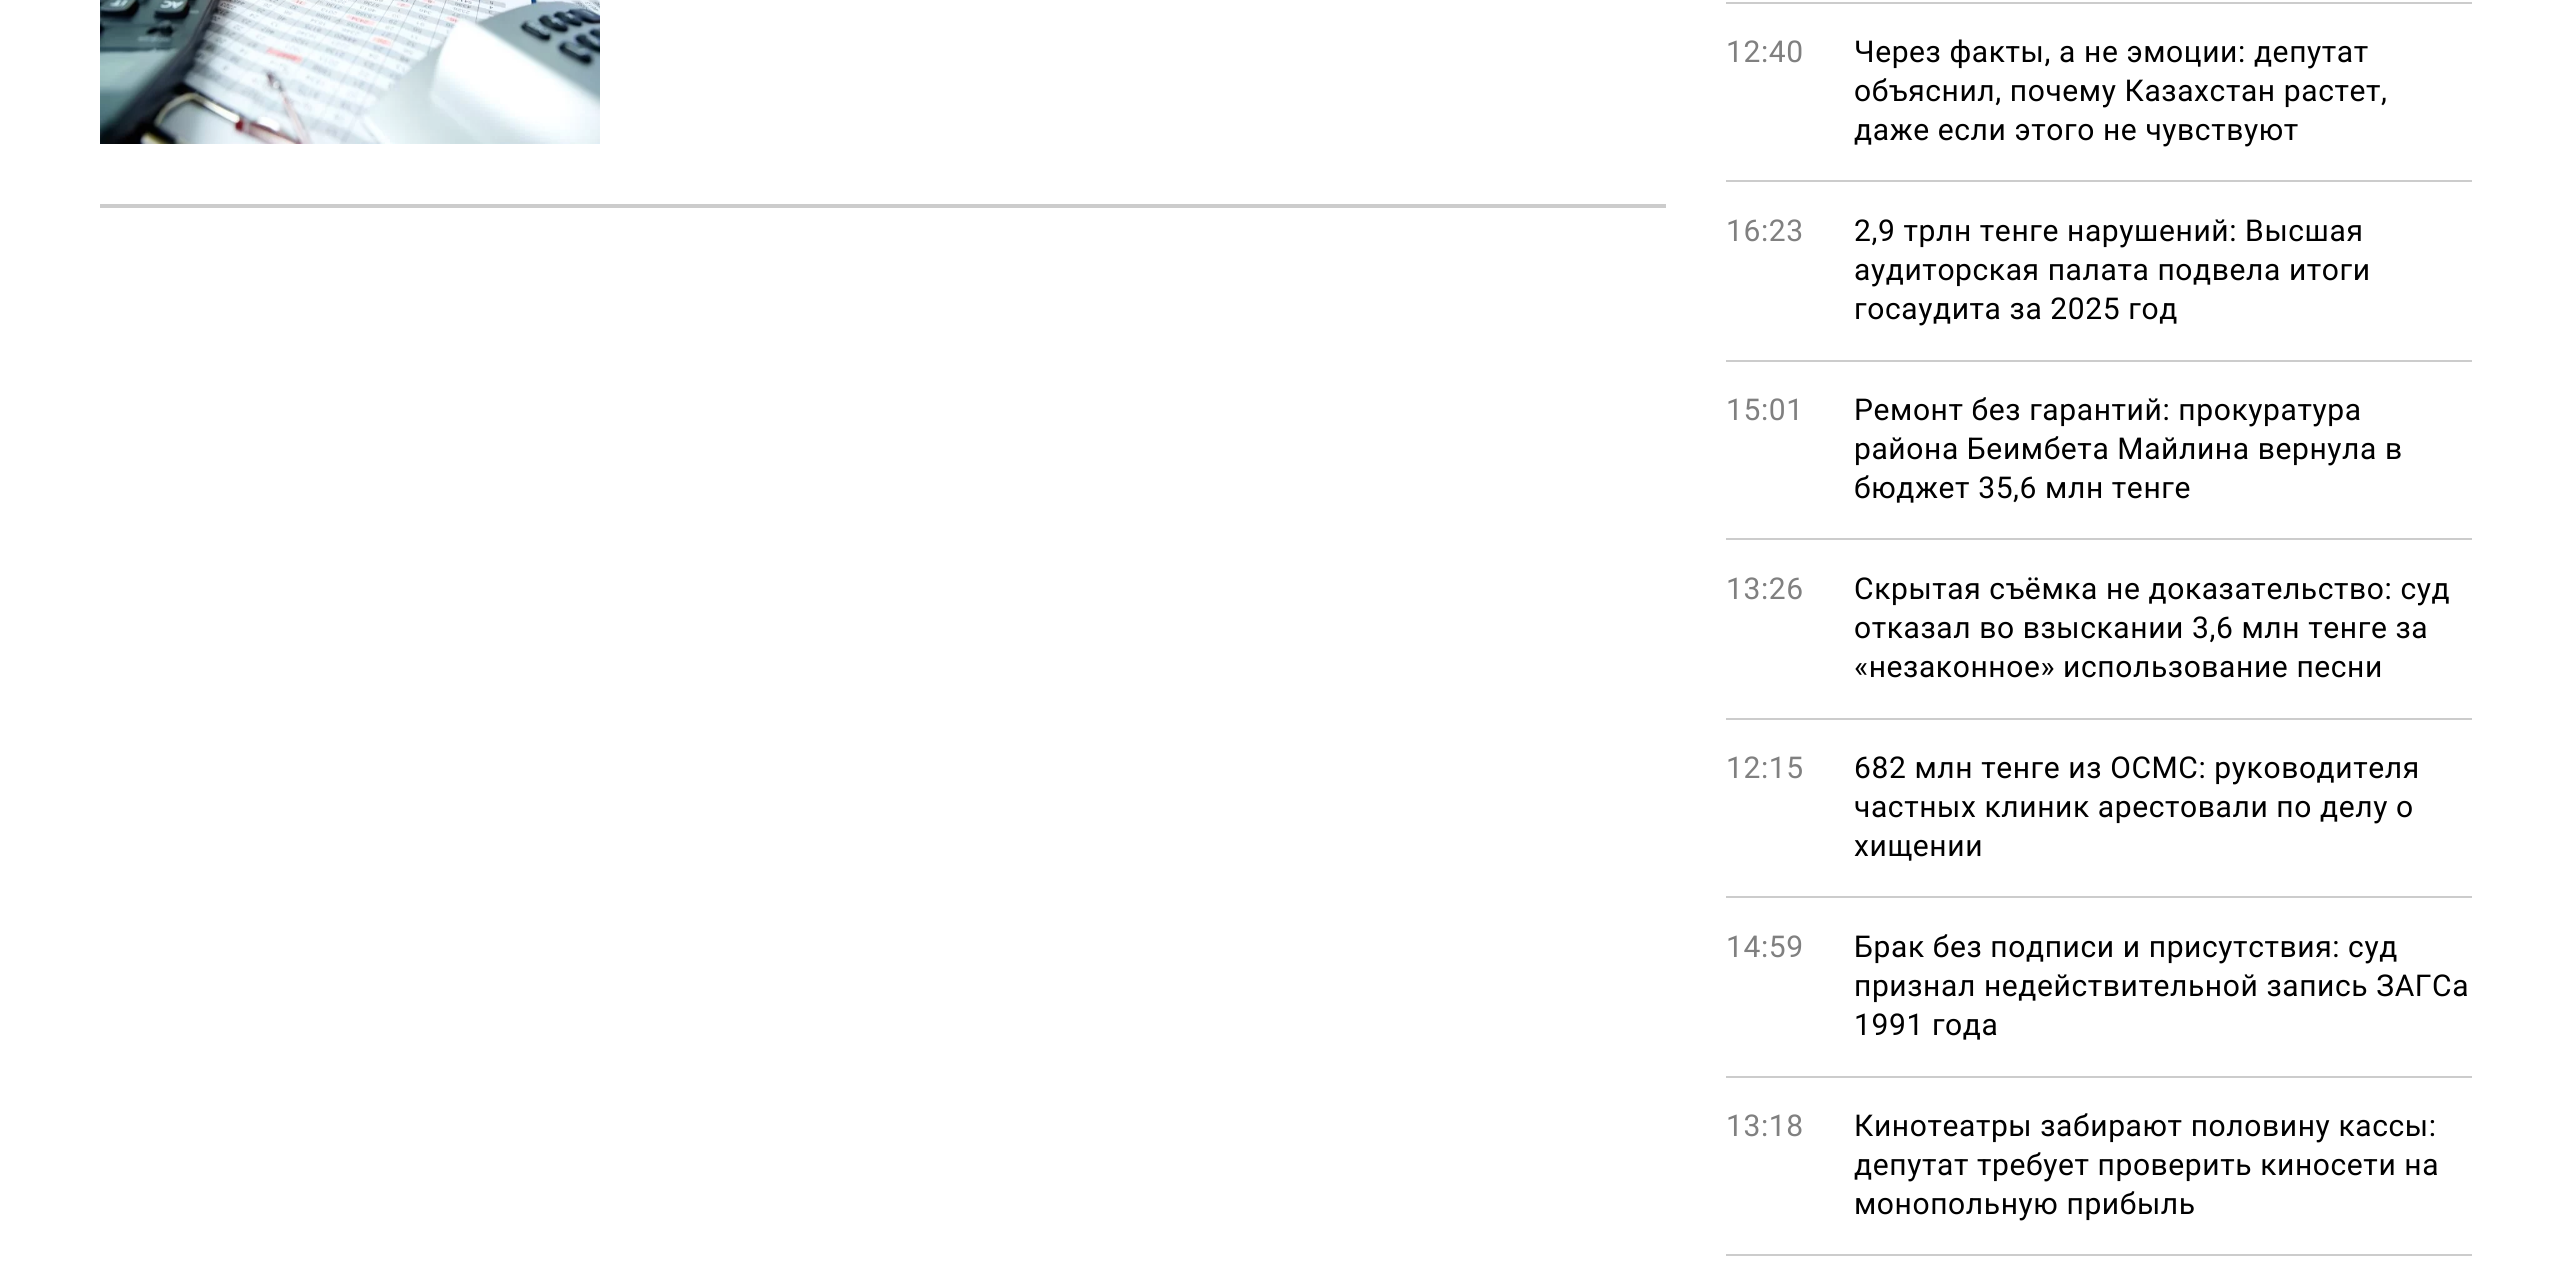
#include <cairo.h>
#include <math.h>
#include <stddef.h>

static cairo_t *c;
static void C(unsigned color){cairo_set_source_rgb(c, (color >> 16) / 255.0, (color >> 8 & 255) / 255.0, (color & 255) / 255.0);}
static void F(const char *family, double size, int italic, int bold){cairo_select_font_face(c, family, italic ? CAIRO_FONT_SLANT_ITALIC : CAIRO_FONT_SLANT_NORMAL,bold ? CAIRO_FONT_WEIGHT_BOLD : CAIRO_FONT_WEIGHT_NORMAL);cairo_set_font_size(c, size);}
static void L(double x, double y, const char *s, double letter, double word){cairo_move_to(c, x, y);while (*s) {char ch[5] = {0};int n = 0;do ch[n++] = *s++; while ((*s & 0xC0) == 0x80);cairo_show_text(c, ch);cairo_rel_move_to(c, letter + word * (*ch == ' '), 0);}}
static void R(double x, double y, double w, double h){cairo_rectangle(c, x, y, w, h);cairo_fill(c);}
static void I(const char *path, double x, double y, double w, double h){cairo_surface_t *image = cairo_image_surface_create_from_png(path);cairo_save(c);cairo_set_source_surface(c, image, x, y);cairo_rectangle(c, x, y, w, h);cairo_fill(c);cairo_restore(c);cairo_surface_destroy(image);}
int main(void) {
cairo_surface_t *surface = cairo_image_surface_create(CAIRO_FORMAT_RGB24, 2569, 1274);
c = cairo_create(surface);
cairo_font_options_t *options = cairo_font_options_create();
cairo_font_options_set_hint_metrics(options, CAIRO_HINT_METRICS_OFF);
cairo_font_options_set_hint_style(options, CAIRO_HINT_STYLE_NONE);
cairo_set_font_options(c, options);
cairo_set_miter_limit(c, 4);
C(0xffffff);
cairo_paint(c);
C(0xcccccc);
R(100,204,1566,4);
I("1.png",100,0,500,144);
R(1726,2,746,2);
R(1726,180,746,2);
F("Roboto",30,0,0);
C(0x808080);
L(1726,62,"12:40",.6,0);
C(0x000000);
L(1854,62,"Через факты, а не эмоции: депутат",.6,0);
L(1854,101,"объяснил, почему Казахстан растет,",.6,0);
L(1854,140,"даже если этого не чувствуют",.6,0);
C(0xcccccc);
R(1726,360,746,2);
C(0x808080);
L(1726,241,"16:23",.6,0);
C(0x000000);
L(1854,241,"2,9 трлн тенге нарушений: Высшая",.6,0);
L(1854,280,"аудиторская палата подвела итоги",.6,0);
L(1854,319,"госаудита за 2025 год",.6,0);
C(0xcccccc);
R(1726,538,746,2);
C(0x808080);
L(1726,420,"15:01",.6,0);
C(0x000000);
L(1854,420,"Ремонт без гарантий: прокуратура",.6,0);
L(1854,459,"района Беимбета Майлина вернула в",.6,0);
L(1854,498,"бюджет 35,6 млн тенге",.6,0);
C(0xcccccc);
R(1726,718,746,2);
C(0x808080);
L(1726,599,"13:26",.6,0);
C(0x000000);
L(1854,599,"Скрытая съёмка не доказательство: суд",.6,0);
L(1854,638,"отказал во взыскании 3,6 млн тенге за",.6,0);
L(1854,677,"«незаконное» использование песни",.6,0);
C(0xcccccc);
R(1726,896,746,2);
C(0x808080);
L(1726,778,"12:15",.6,0);
C(0x000000);
L(1854,778,"682 млн тенге из ОСМС: руководителя",.6,0);
L(1854,817,"частных клиник арестовали по делу о",.6,0);
L(1854,856,"хищении",.6,0);
C(0xcccccc);
R(1726,1076,746,2);
C(0x808080);
L(1726,957,"14:59",.6,0);
C(0x000000);
L(1854,957,"Брак без подписи и присутствия: суд",.6,0);
L(1854,996,"признал недействительной запись ЗАГСа",.6,0);
L(1854,1035,"1991 года",.6,0);
C(0xcccccc);
R(1726,1254,746,2);
C(0x808080);
L(1726,1136,"13:18",.6,0);
C(0x000000);
L(1854,1136,"Кинотеатры забирают половину кассы:",.6,0);
L(1854,1175,"депутат требует проверить киносети на",.6,0);
L(1854,1214,"монопольную прибыль",.6,0);
cairo_surface_write_to_png(surface, "o.png");
cairo_font_options_destroy(options);
cairo_destroy(c);
cairo_surface_destroy(surface);
return 0;
}
